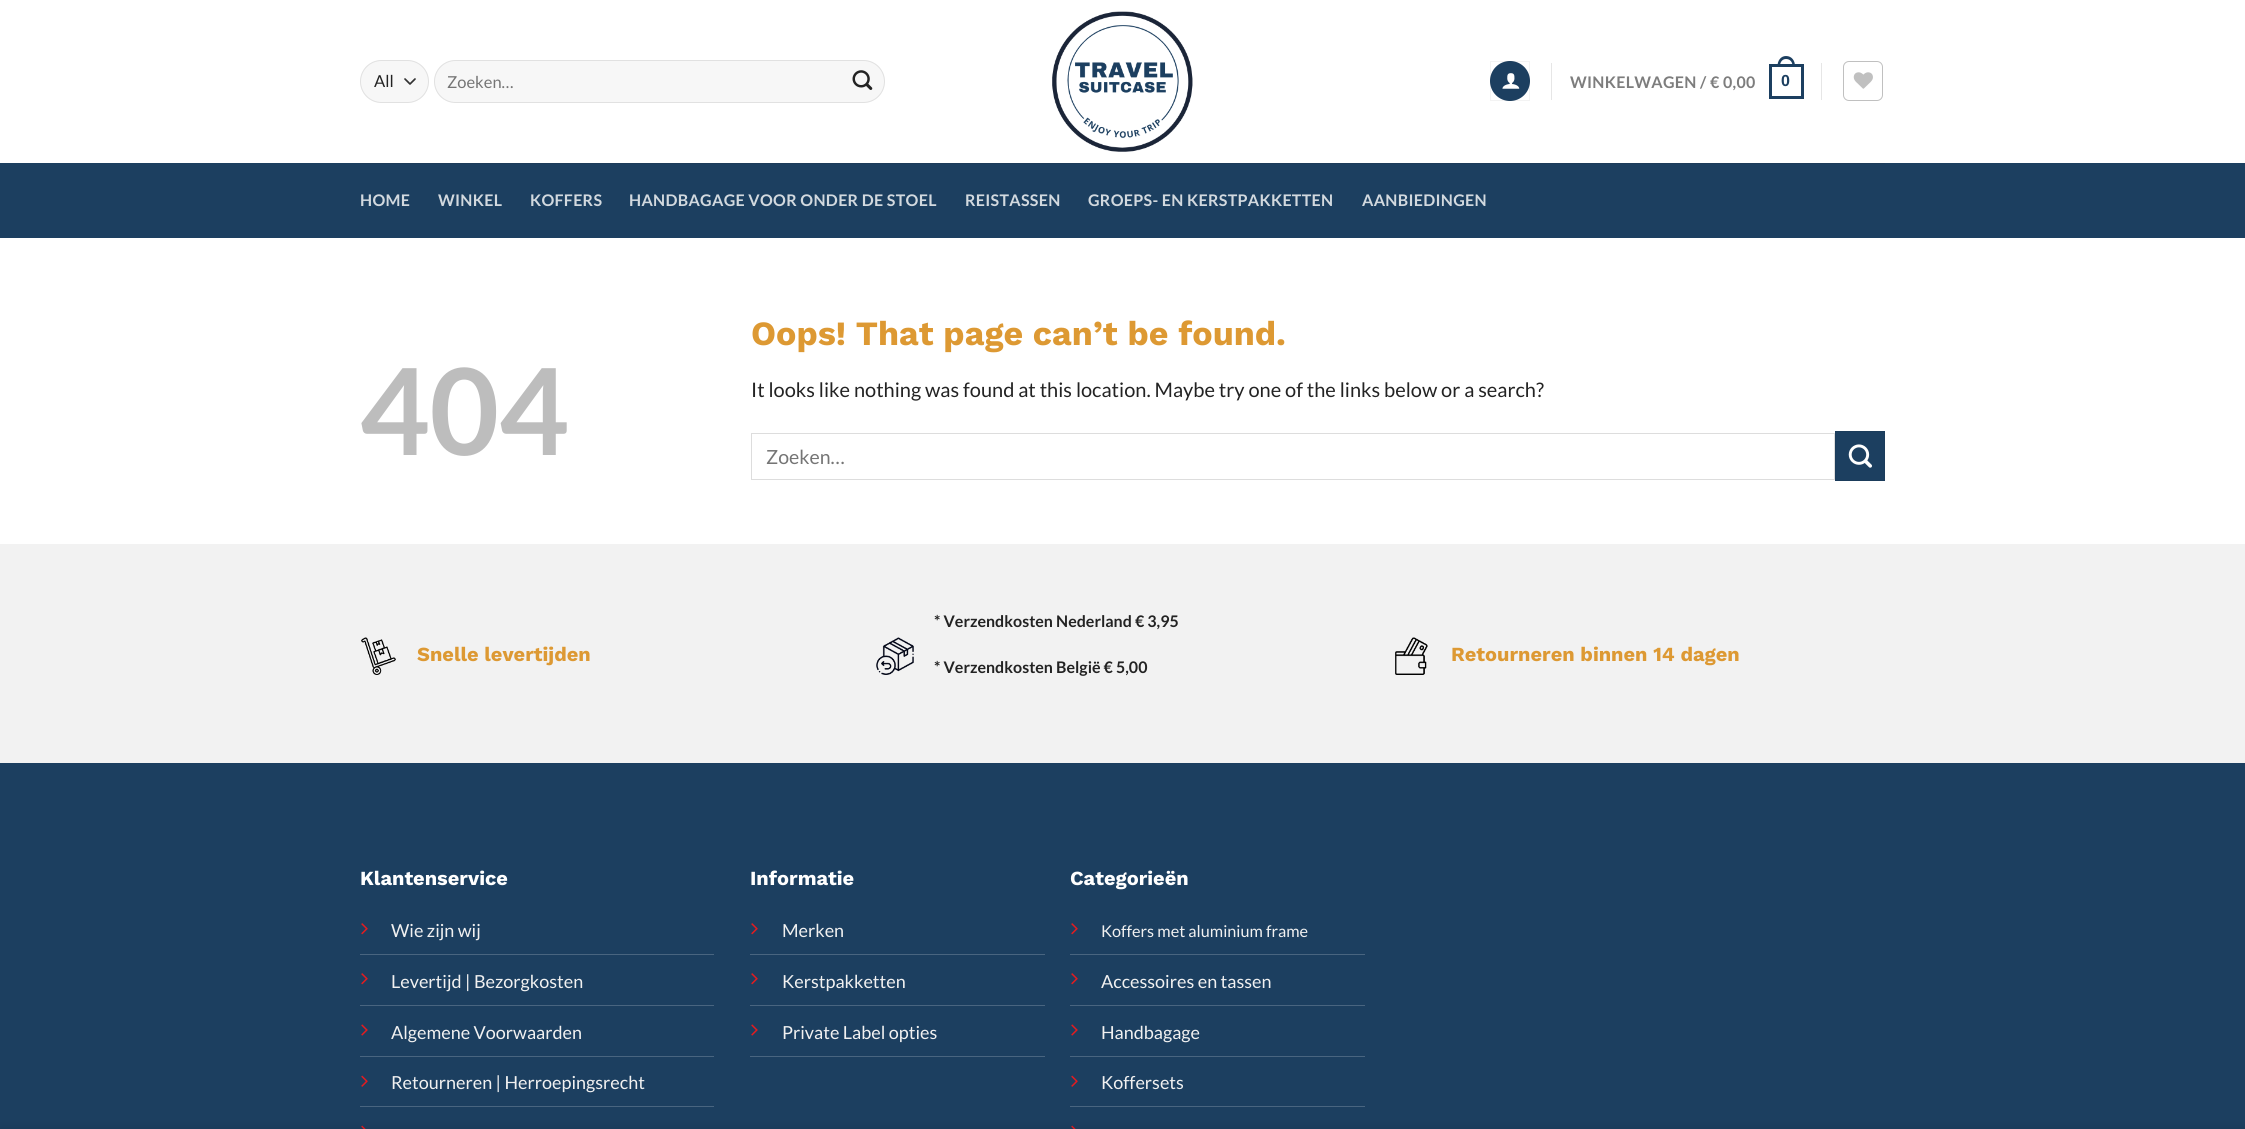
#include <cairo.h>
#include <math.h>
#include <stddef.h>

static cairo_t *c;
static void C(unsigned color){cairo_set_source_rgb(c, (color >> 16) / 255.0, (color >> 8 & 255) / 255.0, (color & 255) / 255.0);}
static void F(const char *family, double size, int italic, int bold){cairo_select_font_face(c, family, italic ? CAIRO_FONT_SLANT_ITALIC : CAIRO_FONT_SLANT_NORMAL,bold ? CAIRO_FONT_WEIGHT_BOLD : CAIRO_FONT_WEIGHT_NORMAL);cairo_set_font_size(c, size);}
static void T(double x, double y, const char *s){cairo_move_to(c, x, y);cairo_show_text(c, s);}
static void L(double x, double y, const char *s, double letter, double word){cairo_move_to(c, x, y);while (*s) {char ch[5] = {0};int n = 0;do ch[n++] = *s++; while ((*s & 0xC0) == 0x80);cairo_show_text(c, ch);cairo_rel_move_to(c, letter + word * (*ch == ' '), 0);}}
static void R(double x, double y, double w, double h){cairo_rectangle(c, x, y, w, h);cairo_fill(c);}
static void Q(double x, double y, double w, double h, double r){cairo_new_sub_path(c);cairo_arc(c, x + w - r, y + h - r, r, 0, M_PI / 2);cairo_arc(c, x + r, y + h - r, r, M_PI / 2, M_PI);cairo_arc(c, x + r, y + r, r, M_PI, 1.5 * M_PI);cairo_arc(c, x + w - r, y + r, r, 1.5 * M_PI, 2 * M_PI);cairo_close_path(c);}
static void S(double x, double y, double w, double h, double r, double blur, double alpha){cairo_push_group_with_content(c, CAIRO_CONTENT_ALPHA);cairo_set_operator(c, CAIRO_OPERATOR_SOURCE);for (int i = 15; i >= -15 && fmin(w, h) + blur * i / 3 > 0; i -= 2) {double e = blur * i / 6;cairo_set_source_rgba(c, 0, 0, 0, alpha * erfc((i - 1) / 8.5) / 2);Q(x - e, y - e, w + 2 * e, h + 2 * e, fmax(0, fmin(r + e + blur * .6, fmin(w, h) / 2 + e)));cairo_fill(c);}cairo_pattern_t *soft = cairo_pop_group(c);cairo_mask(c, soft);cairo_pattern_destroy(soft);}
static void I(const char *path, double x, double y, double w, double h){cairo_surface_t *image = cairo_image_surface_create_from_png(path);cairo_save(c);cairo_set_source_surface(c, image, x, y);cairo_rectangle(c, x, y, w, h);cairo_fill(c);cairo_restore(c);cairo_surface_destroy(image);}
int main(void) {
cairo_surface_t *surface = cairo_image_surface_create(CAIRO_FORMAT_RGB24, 2245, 1129);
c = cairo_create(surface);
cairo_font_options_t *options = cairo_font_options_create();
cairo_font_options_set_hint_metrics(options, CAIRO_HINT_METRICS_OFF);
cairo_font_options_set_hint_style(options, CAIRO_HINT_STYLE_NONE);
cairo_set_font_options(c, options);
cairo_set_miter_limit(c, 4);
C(0xffffff);
cairo_paint(c);
C(0xf7f7f7);
Q(360,60,69,43,21.5);
cairo_fill(c);
cairo_new_path(c);
cairo_move_to(c,405,79);
cairo_line_to(c,410,84);
cairo_line_to(c,415,79);
C(0x333333);
cairo_set_line_width(c,1.7);
cairo_set_line_cap(c,CAIRO_LINE_CAP_ROUND);
cairo_set_line_join(c,CAIRO_LINE_JOIN_ROUND);
cairo_stroke(c);
Q(360.5,60.5,68,42,21);
cairo_set_source_rgba(c,0,0,0,0.09);
cairo_set_line_width(c,1);
cairo_set_line_cap(c,CAIRO_LINE_CAP_BUTT);
cairo_set_line_join(c,CAIRO_LINE_JOIN_MITER);
cairo_stroke(c);
F("Lato",16.5,0,0);
C(0x232323);
T(374,87,"All");
C(0xf7f7f7);
Q(434,60,451,43,21.5);
cairo_fill(c);
Q(434.5,60.5,450,42,21);
cairo_set_source_rgba(c,0,0,0,0.09);
cairo_stroke(c);
C(0x757575);
T(447,88,"Zoeken…");
I("1.png",852,70,21,20);
I("2.png",1052,11,141,141);
C(0x1c3f60);
cairo_arc(c,1510,81,20,0,2 * M_PI);
cairo_fill(c);
cairo_rectangle(c,1490.5,61.5,39,39);
cairo_set_source_rgba(c,0,0,0,0.05);
cairo_stroke(c);
I("3.png",1502,73,18,16);
C(0xe6e6e6);
R(1551,63,1,37);
F("Lato",16,0,1);
C(0x7d7d7d);
L(1570,88,"WINKELWAGEN / € 0,00",.3,0);
cairo_rectangle(c,1770.5,65.5,32,32);
C(0x1c3f60);
cairo_set_line_width(c,3);
cairo_stroke(c);
cairo_set_fill_rule(c,CAIRO_FILL_RULE_EVEN_ODD);
cairo_new_path(c);
cairo_move_to(c,1786,56);
cairo_curve_to(c,1792,56,1795,61,1795,66);
cairo_line_to(c,1777.5,66);
cairo_curve_to(c,1777.5,61,1780.5,56,1786,56);
cairo_close_path(c);
cairo_move_to(c,1786,59);
cairo_curve_to(c,1790.5,59,1792.5,62.5,1792.5,66);
cairo_line_to(c,1780,66);
cairo_curve_to(c,1780,62.5,1782,59,1786,59);
cairo_close_path(c);
cairo_fill(c);
F("Liberation Sans",16,0,1);
L(1781,86,"0",.3,0);
C(0xe6e6e6);
R(1821,63,1,37);
Q(1843.5,61.5,39,39,5.5);
C(0xc0c0c0);
cairo_set_line_width(c,1);
cairo_stroke(c);
I("4.png",1853,72,20,17);
C(0x1c3f60);
R(0,163,2245,75);
C(0x1d3c5a);
R(360,163,1525,1);
F("Lato",16,0,1);
C(0xd2d9df);
L(360,206,"HOME",.3,0);
L(438,206,"WINKEL",.3,0);
L(530,206,"KOFFERS",.3,0);
L(629,206,"HANDBAGAGE VOOR ONDER DE STOEL",.3,0);
L(965,206,"REISTASSEN",.3,0);
L(1088,206,"GROEPS- EN KERSTPAKKETTEN",.3,0);
L(1362,206,"AANBIEDINGEN",.3,0);
F("Lato",120,0,1);
C(0xbdbdbd);
T(360,455,"404");
F("Work Sans",34,0,1);
C(0xdd9933);
T(751,345,"Oops! That page can’t be found.");
F("Lato",20,0,0);
C(0x232323);
T(751,397,"It looks like nothing was found at this location. Maybe try one of the links below or a search?");
cairo_rectangle(c,751.5,433.5,1083,46);
C(0xdddddd);
cairo_stroke(c);
F("Lato",19.5,0,0);
C(0x757575);
T(766,464,"Zoeken…");
C(0x1c3f60);
cairo_rectangle(c,1835.5,431.5,49,49);
cairo_fill_preserve(c);
C(0x1b3c5b);
cairo_stroke(c);
I("5.png",1848,444,24,24);
C(0xf2f2f2);
R(0,544,2245,219);
I("6.png",361,637,35,38);
F("Work Sans",20,0,1);
C(0xdd9933);
T(417,661,"Snelle levertijden");
I("7.png",876,637,38,38);
F("Lato",16,0,1);
C(0x232323);
T(934,627,"* Verzendkosten Nederland € 3,95");
T(934,673,"* Verzendkosten België € 5,00");
I("8.png",1395,637,33,38);
F("Work Sans",20,0,1);
C(0xdd9933);
T(1451,661,"Retourneren binnen 14 dagen");
C(0x1c3f60);
R(0,763,2245,366);
C(0xffffff);
T(360,885,"Klantenservice");
C(0x496580);
R(360,954,354,1);
I("9.png",361,923,7,12);
F("Lato",18,0,0);
C(0xf1f1f1);
T(391,937,"Wie zijn wij");
C(0x496580);
R(360,1005,354,1);
I("9.png",361,973,7,12);
C(0xf1f1f1);
T(391,988,"Levertijd | Bezorgkosten");
C(0x496580);
R(360,1056,354,1);
I("10.png",361,1024,7,12);
C(0xf1f1f1);
T(391,1039,"Algemene Voorwaarden");
C(0x496580);
R(360,1106,354,1);
I("11.png",361,1075,7,12);
C(0xf1f1f1);
T(391,1089,"Retourneren | Herroepingsrecht");
I("12.png",361,1125,5,4);
F("Work Sans",20,0,1);
C(0xffffff);
T(750,885,"Informatie");
C(0x496580);
R(750,954,295,1);
I("9.png",751,923,7,12);
F("Lato",18,0,0);
C(0xf1f1f1);
T(782,937,"Merken");
C(0x496580);
R(750,1005,295,1);
I("9.png",751,973,7,12);
C(0xf1f1f1);
T(782,988,"Kerstpakketten");
C(0x496580);
R(750,1056,295,1);
I("10.png",751,1024,7,12);
C(0xf1f1f1);
T(782,1039,"Private Label opties");
F("Work Sans",20,0,1);
C(0xffffff);
T(1070,885,"Categorieën");
C(0x496580);
R(1070,954,295,1);
I("9.png",1071,923,7,12);
F("Lato",16.25,0,0);
C(0xf1f1f1);
T(1101,937,"Koffers met aluminium frame");
C(0x496580);
R(1070,1005,295,1);
I("9.png",1071,973,7,12);
F("Lato",18,0,0);
C(0xf1f1f1);
T(1101,988,"Accessoires en tassen");
C(0x496580);
R(1070,1056,295,1);
I("10.png",1071,1024,7,12);
C(0xf1f1f1);
T(1101,1039,"Handbagage");
C(0x496580);
R(1070,1106,295,1);
I("11.png",1071,1075,7,12);
C(0xf1f1f1);
T(1101,1089,"Koffersets");
I("12.png",1071,1125,5,4);
C(0x000000);
S(0,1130,2245,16,0,5.5,.14);
cairo_surface_write_to_png(surface, "o.png");
cairo_font_options_destroy(options);
cairo_destroy(c);
cairo_surface_destroy(surface);
return 0;
}
